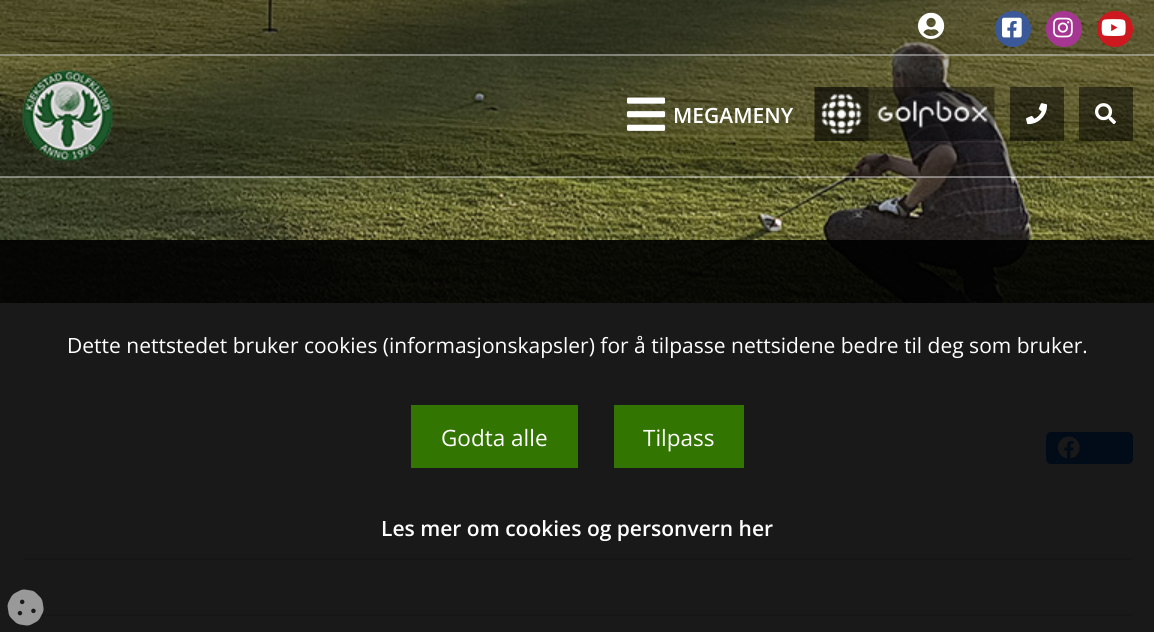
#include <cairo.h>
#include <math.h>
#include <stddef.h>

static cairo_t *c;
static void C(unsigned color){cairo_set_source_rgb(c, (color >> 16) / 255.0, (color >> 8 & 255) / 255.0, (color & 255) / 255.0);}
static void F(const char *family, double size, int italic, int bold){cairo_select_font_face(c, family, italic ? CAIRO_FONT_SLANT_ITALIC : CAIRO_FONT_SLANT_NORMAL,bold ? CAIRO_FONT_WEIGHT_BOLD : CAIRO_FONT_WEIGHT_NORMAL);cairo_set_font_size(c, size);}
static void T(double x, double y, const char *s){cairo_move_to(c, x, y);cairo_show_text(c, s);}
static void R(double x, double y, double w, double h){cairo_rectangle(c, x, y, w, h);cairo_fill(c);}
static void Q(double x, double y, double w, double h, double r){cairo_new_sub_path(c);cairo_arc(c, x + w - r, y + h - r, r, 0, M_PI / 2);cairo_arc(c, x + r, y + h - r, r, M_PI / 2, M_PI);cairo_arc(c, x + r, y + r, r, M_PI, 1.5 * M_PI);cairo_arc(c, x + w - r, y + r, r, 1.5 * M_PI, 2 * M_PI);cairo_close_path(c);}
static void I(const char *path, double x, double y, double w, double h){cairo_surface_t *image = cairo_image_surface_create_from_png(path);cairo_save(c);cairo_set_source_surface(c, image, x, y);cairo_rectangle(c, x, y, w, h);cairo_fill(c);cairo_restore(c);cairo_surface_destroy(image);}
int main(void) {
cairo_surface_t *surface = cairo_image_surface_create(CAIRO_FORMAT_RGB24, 1154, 632);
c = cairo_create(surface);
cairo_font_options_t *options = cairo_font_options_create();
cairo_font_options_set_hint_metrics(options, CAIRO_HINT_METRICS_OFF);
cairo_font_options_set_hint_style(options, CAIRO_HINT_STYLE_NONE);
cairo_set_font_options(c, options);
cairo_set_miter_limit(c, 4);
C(0xffffff);
cairo_paint(c);
I("1.png",0,0,1154,303);
cairo_set_source_rgba(c,0,0,0,0.3);
R(0,0,1154,177);
cairo_set_source_rgba(c,1,1,1,0.4);
R(0,176,1154,2);
cairo_set_source_rgba(c,0,0,0,0.2);
R(0,0,1154,56);
cairo_set_source_rgba(c,1,1,1,0.4);
R(0,54,1154,2);
I("2.png",918,12,27,27);
C(0x3b5998);
cairo_arc(c,1013,29,18,0,2 * M_PI);
cairo_fill(c);
I("3.png",1002,17,20,21);
C(0xa53692);
cairo_arc(c,1064,29,18,0,2 * M_PI);
cairo_fill(c);
I("4.png",1053,17,20,21);
C(0xcc181e);
cairo_arc(c,1115,29,18,0,2 * M_PI);
cairo_fill(c);
I("5.png",1101,19,25,17);
I("6.png",22,70,91,91);
I("7.png",627,97,39,34);
F("Open Sans SemiBold",21,0,0);
C(0xffffff);
T(673,123,"MEGAMENY");
I("8.png",814,87,181,54);
cairo_set_source_rgba(c,0,0,0,0.5);
R(1010,87,54,54);
I("9.png",1026,103,21,22);
R(1079,87,54,54);
I("10.png",1095,103,21,22);
C(0x1877f2);
Q(1046,432,87,32,5);
cairo_fill(c);
I("11.png",1057,436,23,23);
C(0xe0e0e0);
R(23,558,1110,2);
R(41,614,1092,2);
cairo_set_source_rgba(c,0,0,0,0.9);
R(0,240,1154,392);
F("Open Sans",21,0,0);
C(0xffffff);
T(67,353,"Dette nettstedet bruker cookies (informasjonskapsler) for å tilpasse nettsidene bedre til deg som bruker.");
C(0x327500);
R(411,405,167,63);
F("Open Sans",22.5,0,0);
C(0xffffff);
T(441,446,"Godta alle");
C(0x327500);
R(614,405,130,63);
C(0xffffff);
T(643,446,"Tilpass");
F("Open Sans SemiBold",21,0,0);
T(381,536,"Les mer om cookies og personvern her");
I("12.png",7,589,37,37);
cairo_surface_write_to_png(surface, "o.png");
cairo_font_options_destroy(options);
cairo_destroy(c);
cairo_surface_destroy(surface);
return 0;
}
